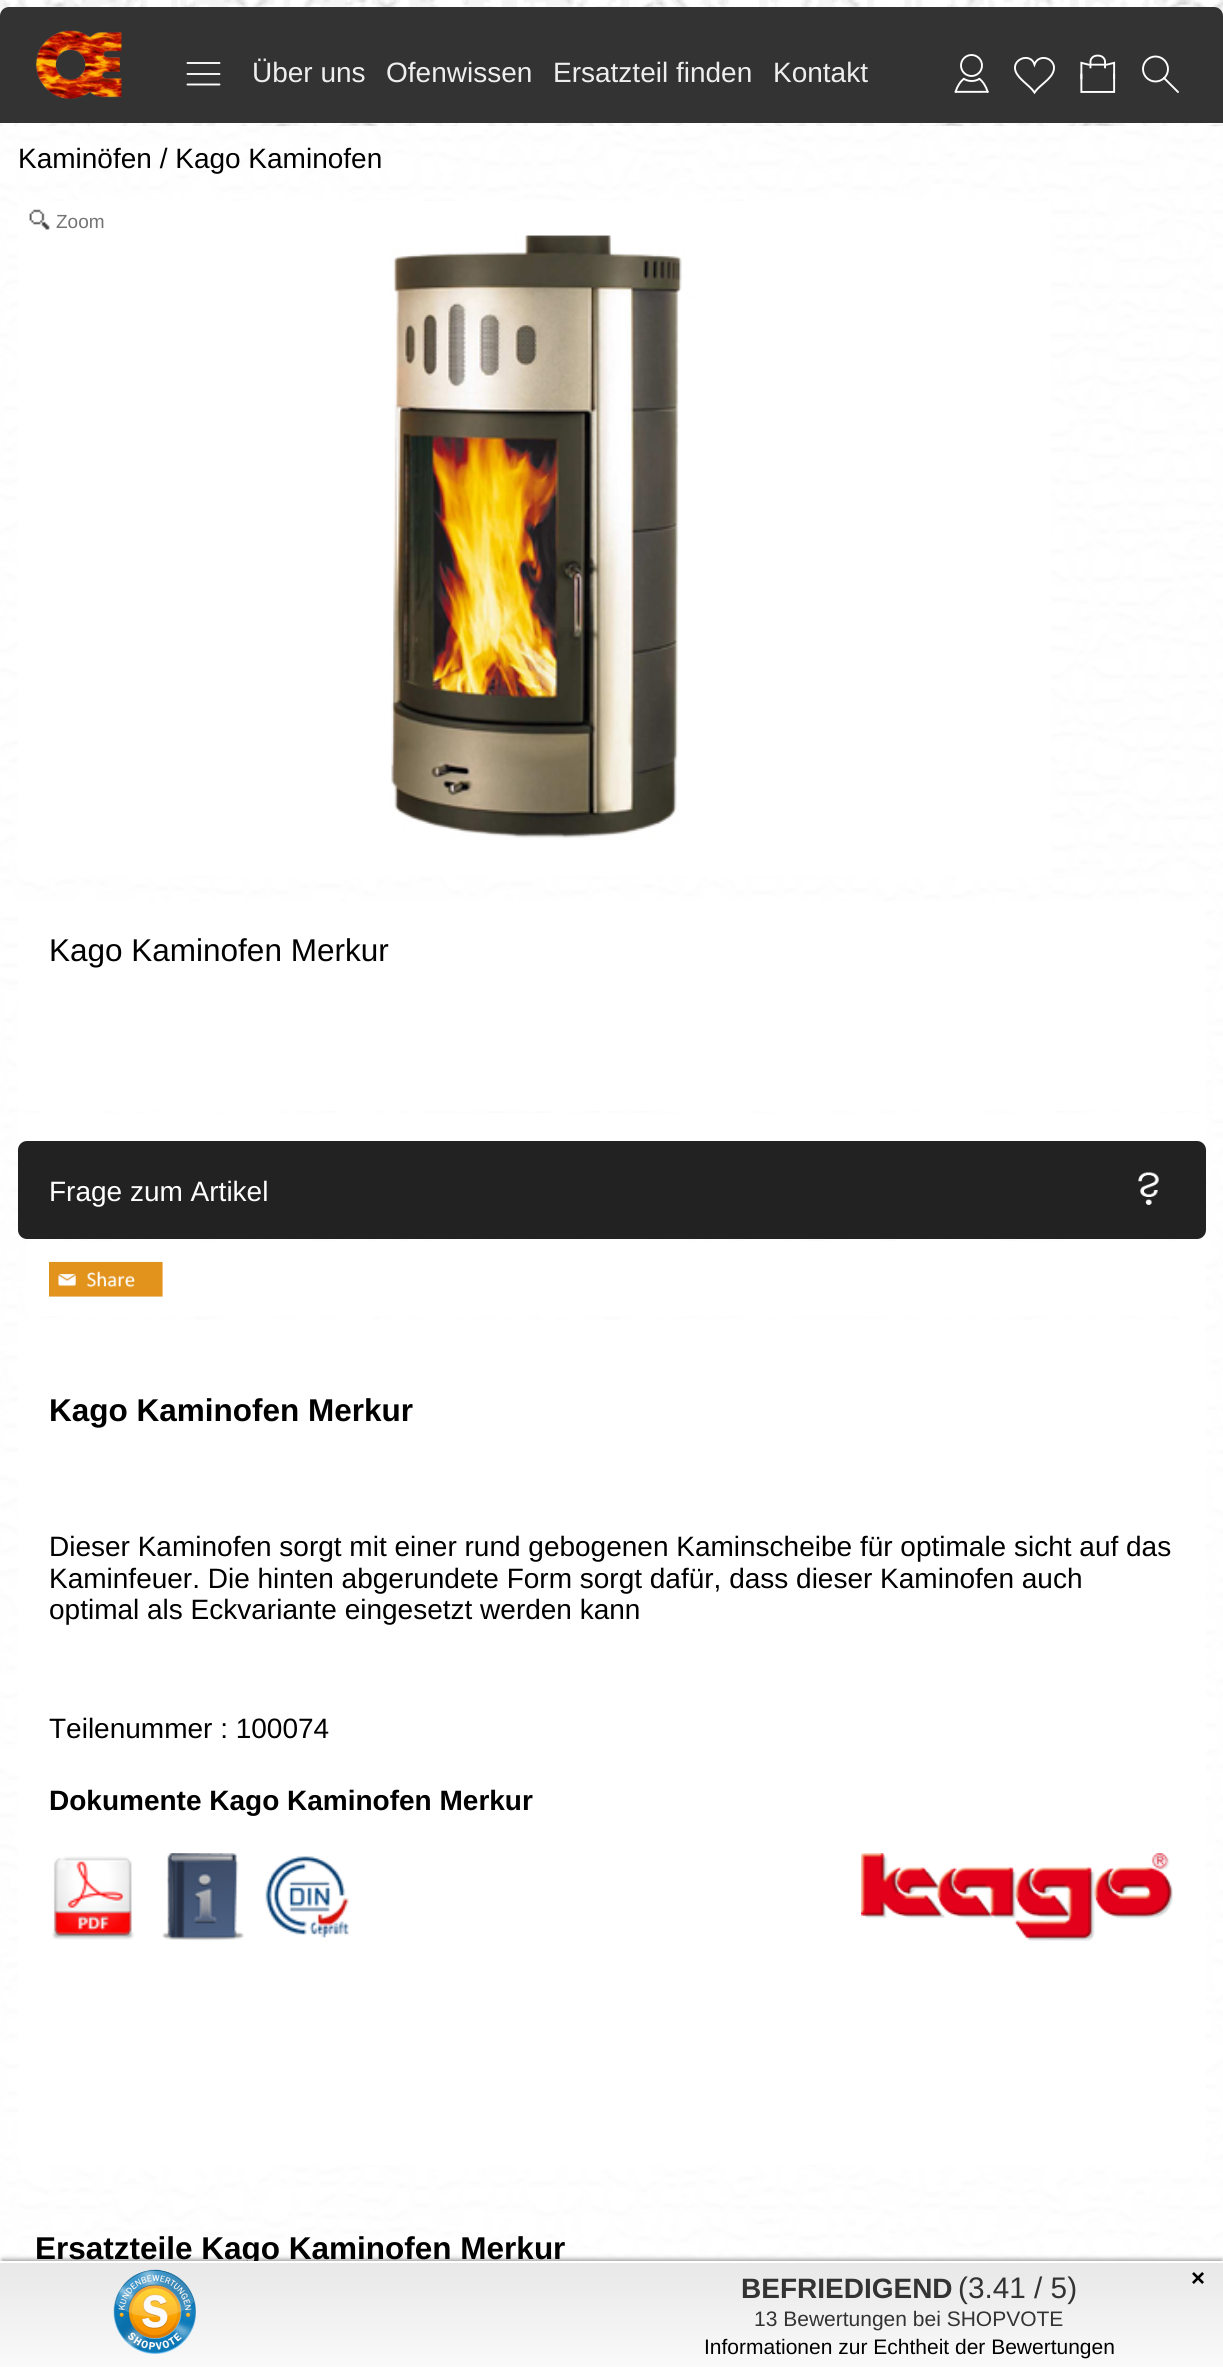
#include <cairo.h>
#include <math.h>
#include <stddef.h>

static cairo_t *c;
static void C(unsigned color){cairo_set_source_rgb(c, (color >> 16) / 255.0, (color >> 8 & 255) / 255.0, (color & 255) / 255.0);}
static void F(const char *family, double size, int italic, int bold){cairo_select_font_face(c, family, italic ? CAIRO_FONT_SLANT_ITALIC : CAIRO_FONT_SLANT_NORMAL,bold ? CAIRO_FONT_WEIGHT_BOLD : CAIRO_FONT_WEIGHT_NORMAL);cairo_set_font_size(c, size);}
static void T(double x, double y, const char *s){cairo_move_to(c, x, y);cairo_show_text(c, s);}
static void R(double x, double y, double w, double h){cairo_rectangle(c, x, y, w, h);cairo_fill(c);}
static void Q(double x, double y, double w, double h, double r){cairo_new_sub_path(c);cairo_arc(c, x + w - r, y + h - r, r, 0, M_PI / 2);cairo_arc(c, x + r, y + h - r, r, M_PI / 2, M_PI);cairo_arc(c, x + r, y + r, r, M_PI, 1.5 * M_PI);cairo_arc(c, x + w - r, y + r, r, 1.5 * M_PI, 2 * M_PI);cairo_close_path(c);}
static void S(double x, double y, double w, double h, double r, double blur, double alpha){cairo_push_group_with_content(c, CAIRO_CONTENT_ALPHA);cairo_set_operator(c, CAIRO_OPERATOR_SOURCE);for (int i = 15; i >= -15 && fmin(w, h) + blur * i / 3 > 0; i -= 2) {double e = blur * i / 6;cairo_set_source_rgba(c, 0, 0, 0, alpha * erfc((i - 1) / 8.5) / 2);Q(x - e, y - e, w + 2 * e, h + 2 * e, fmax(0, fmin(r + e + blur * .6, fmin(w, h) / 2 + e)));cairo_fill(c);}cairo_pattern_t *soft = cairo_pop_group(c);cairo_mask(c, soft);cairo_pattern_destroy(soft);}
static void I(const char *path, double x, double y, double w, double h){cairo_surface_t *image = cairo_image_surface_create_from_png(path);cairo_save(c);cairo_set_source_surface(c, image, x, y);cairo_rectangle(c, x, y, w, h);cairo_fill(c);cairo_restore(c);cairo_surface_destroy(image);}
int main(void) {
cairo_surface_t *surface = cairo_image_surface_create(CAIRO_FORMAT_RGB24, 1223, 2367);
c = cairo_create(surface);
cairo_font_options_t *options = cairo_font_options_create();
cairo_font_options_set_hint_metrics(options, CAIRO_HINT_METRICS_OFF);
cairo_font_options_set_hint_style(options, CAIRO_HINT_STYLE_NONE);
cairo_set_font_options(c, options);
cairo_set_miter_limit(c, 4);
cairo_pattern_t *gradient;
C(0xffffff);
cairo_paint(c);
I("1.png",0,0,1223,2261);
C(0x333333);
cairo_new_path(c);
cairo_move_to(c,9,7);
cairo_line_to(c,1214,7);
cairo_curve_to(c,1219,7,1223,11,1223,16);
cairo_line_to(c,1223,123);
cairo_line_to(c,0,123);
cairo_line_to(c,0,16);
cairo_curve_to(c,0,11,4,7,9,7);
cairo_close_path(c);
cairo_fill(c);
I("2.png",35,30,87,69);
cairo_new_path(c);
cairo_move_to(c,187.5,84.5);
cairo_line_to(c,219.5,84.5);
cairo_move_to(c,187.5,74);
cairo_line_to(c,219.5,74);
cairo_move_to(c,187.5,63);
cairo_line_to(c,219.5,63);
C(0xffffff);
cairo_set_line_width(c,1.9);
cairo_set_line_cap(c,CAIRO_LINE_CAP_ROUND);
cairo_stroke(c);
F("Liberation Sans",28,0,0);
C(0xeeeeee);
T(252,82,"Über uns");
T(386,82,"Ofenwissen");
T(553,82,"Ersatzteil finden");
T(773,82,"Kontakt");
I("3.png",954,54,35,39);
cairo_new_path(c);
cairo_move_to(c,1034.5,92.5);
cairo_curve_to(c,1029.5,85,1018.5,79.5,1015.5,71);
cairo_curve_to(c,1011.5,59,1030.5,52,1034.5,64.5);
cairo_curve_to(c,1038,54.5,1052,56.5,1054,66.5);
cairo_curve_to(c,1054,68,1054,69.5,1053.5,71);
cairo_curve_to(c,1051,79.5,1039.5,85,1034.5,92.5);
cairo_close_path(c);
C(0xffffff);
cairo_set_line_cap(c,CAIRO_LINE_CAP_BUTT);
cairo_stroke(c);
I("4.png",1080,54,36,39);
cairo_arc(c,1155.5,69,12.5,0,2 * M_PI);
cairo_stroke(c);
cairo_new_path(c);
cairo_move_to(c,1164,78);
cairo_line_to(c,1178,92);
cairo_set_line_cap(c,CAIRO_LINE_CAP_ROUND);
cairo_stroke(c);
C(0x000000);
T(18,168,"Kaminöfen / Kago Kaminofen");
I("5.png",18,201,1033,675);
I("6.png",29,209,21,21);
F("Liberation Sans",19,0,0);
C(0x737373);
T(56,228,"Zoom");
C(0xffffff);
cairo_new_path(c);
cairo_move_to(c,27,901);
cairo_line_to(c,1197,901);
cairo_curve_to(c,1202,901,1206,905,1206,910);
cairo_line_to(c,1206,1111);
cairo_line_to(c,18,1111);
cairo_line_to(c,18,910);
cairo_curve_to(c,18,905,22,901,27,901);
cairo_close_path(c);
cairo_fill(c);
F("Liberation Sans",31.5,0,0);
C(0x000000);
T(49,961,"Kago Kaminofen Merkur");
C(0xffffff);
R(18,1113,1188,126);
C(0x222222);
Q(18,1141,1188,98,9);
cairo_fill(c);
F("Liberation Sans",28,0,0);
C(0xffffff);
T(49,1201,"Frage zum Artikel");
I("7.png",1138,1172,21,33);
R(26,1241,1180,75);
I("8.png",49,1261,114,36);
cairo_new_path(c);
cairo_move_to(c,18,1320);
cairo_line_to(c,1206,1320);
cairo_line_to(c,1206,2156);
cairo_curve_to(c,1206,2161,1202,2165,1197,2165);
cairo_line_to(c,27,2165);
cairo_curve_to(c,22,2165,18,2161,18,2156);
cairo_close_path(c);
cairo_fill(c);
F("Liberation Sans",31.5,0,1);
C(0x000000);
T(49,1421,"Kago Kaminofen Merkur");
F("Liberation Sans",28,0,0);
T(49,1556,"Dieser Kaminofen sorgt mit einer rund gebogenen Kaminscheibe für optimale sicht auf das");
T(49,1588,"Kaminfeuer. Die hinten abgerundete Form sorgt dafür, dass dieser Kaminofen auch");
T(49,1619,"optimal als Eckvariante eingesetzt werden kann");
T(49,1738,"Teilenummer : 100074");
F("Liberation Sans",28,0,1);
T(49,1810,"Dokumente Kago Kaminofen Merkur");
I("9.png",52,1856,82,84);
I("10.png",162,1853,82,88);
I("11.png",265,1856,84,82);
I("12.png",861,1853,312,88);
F("Liberation Sans",31.5,0,1);
T(35,2259,"Ersatzteile Kago Kaminofen Merkur");
C(0x000000);
S(2,2259,1220,104,0,2,.35);
gradient = cairo_pattern_create_linear(612,2263,612,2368);
cairo_pattern_add_color_stop_rgba(gradient,0,0.941,0.941,0.941,1);
cairo_pattern_add_color_stop_rgba(gradient,0,0.91,0.91,0.91,1);
cairo_pattern_add_color_stop_rgba(gradient,1,0.98,0.98,0.98,1);
cairo_set_source(c,gradient);
cairo_pattern_destroy(gradient);
R(0,2263,1223,104);
C(0xffffff);
R(0,2261,1223,2);
I("13.png",113,2269,83,85);
F("Liberation Sans",28,0,1);
C(0x333333);
T(741,2298,"BEFRIEDIGEND");
F("Liberation Sans",29.75,0,0);
T(958,2298,"(3.41 / 5)");
F("Liberation Sans",21,0,0);
T(754,2326,"13 Bewertungen bei SHOPVOTE");
C(0x000000);
T(704,2354,"Informationen zur Echtheit der Bewertungen");
F("Liberation Sans",24,0,1);
T(1191,2286,"×");
cairo_surface_write_to_png(surface, "o.png");
cairo_font_options_destroy(options);
cairo_destroy(c);
cairo_surface_destroy(surface);
return 0;
}
